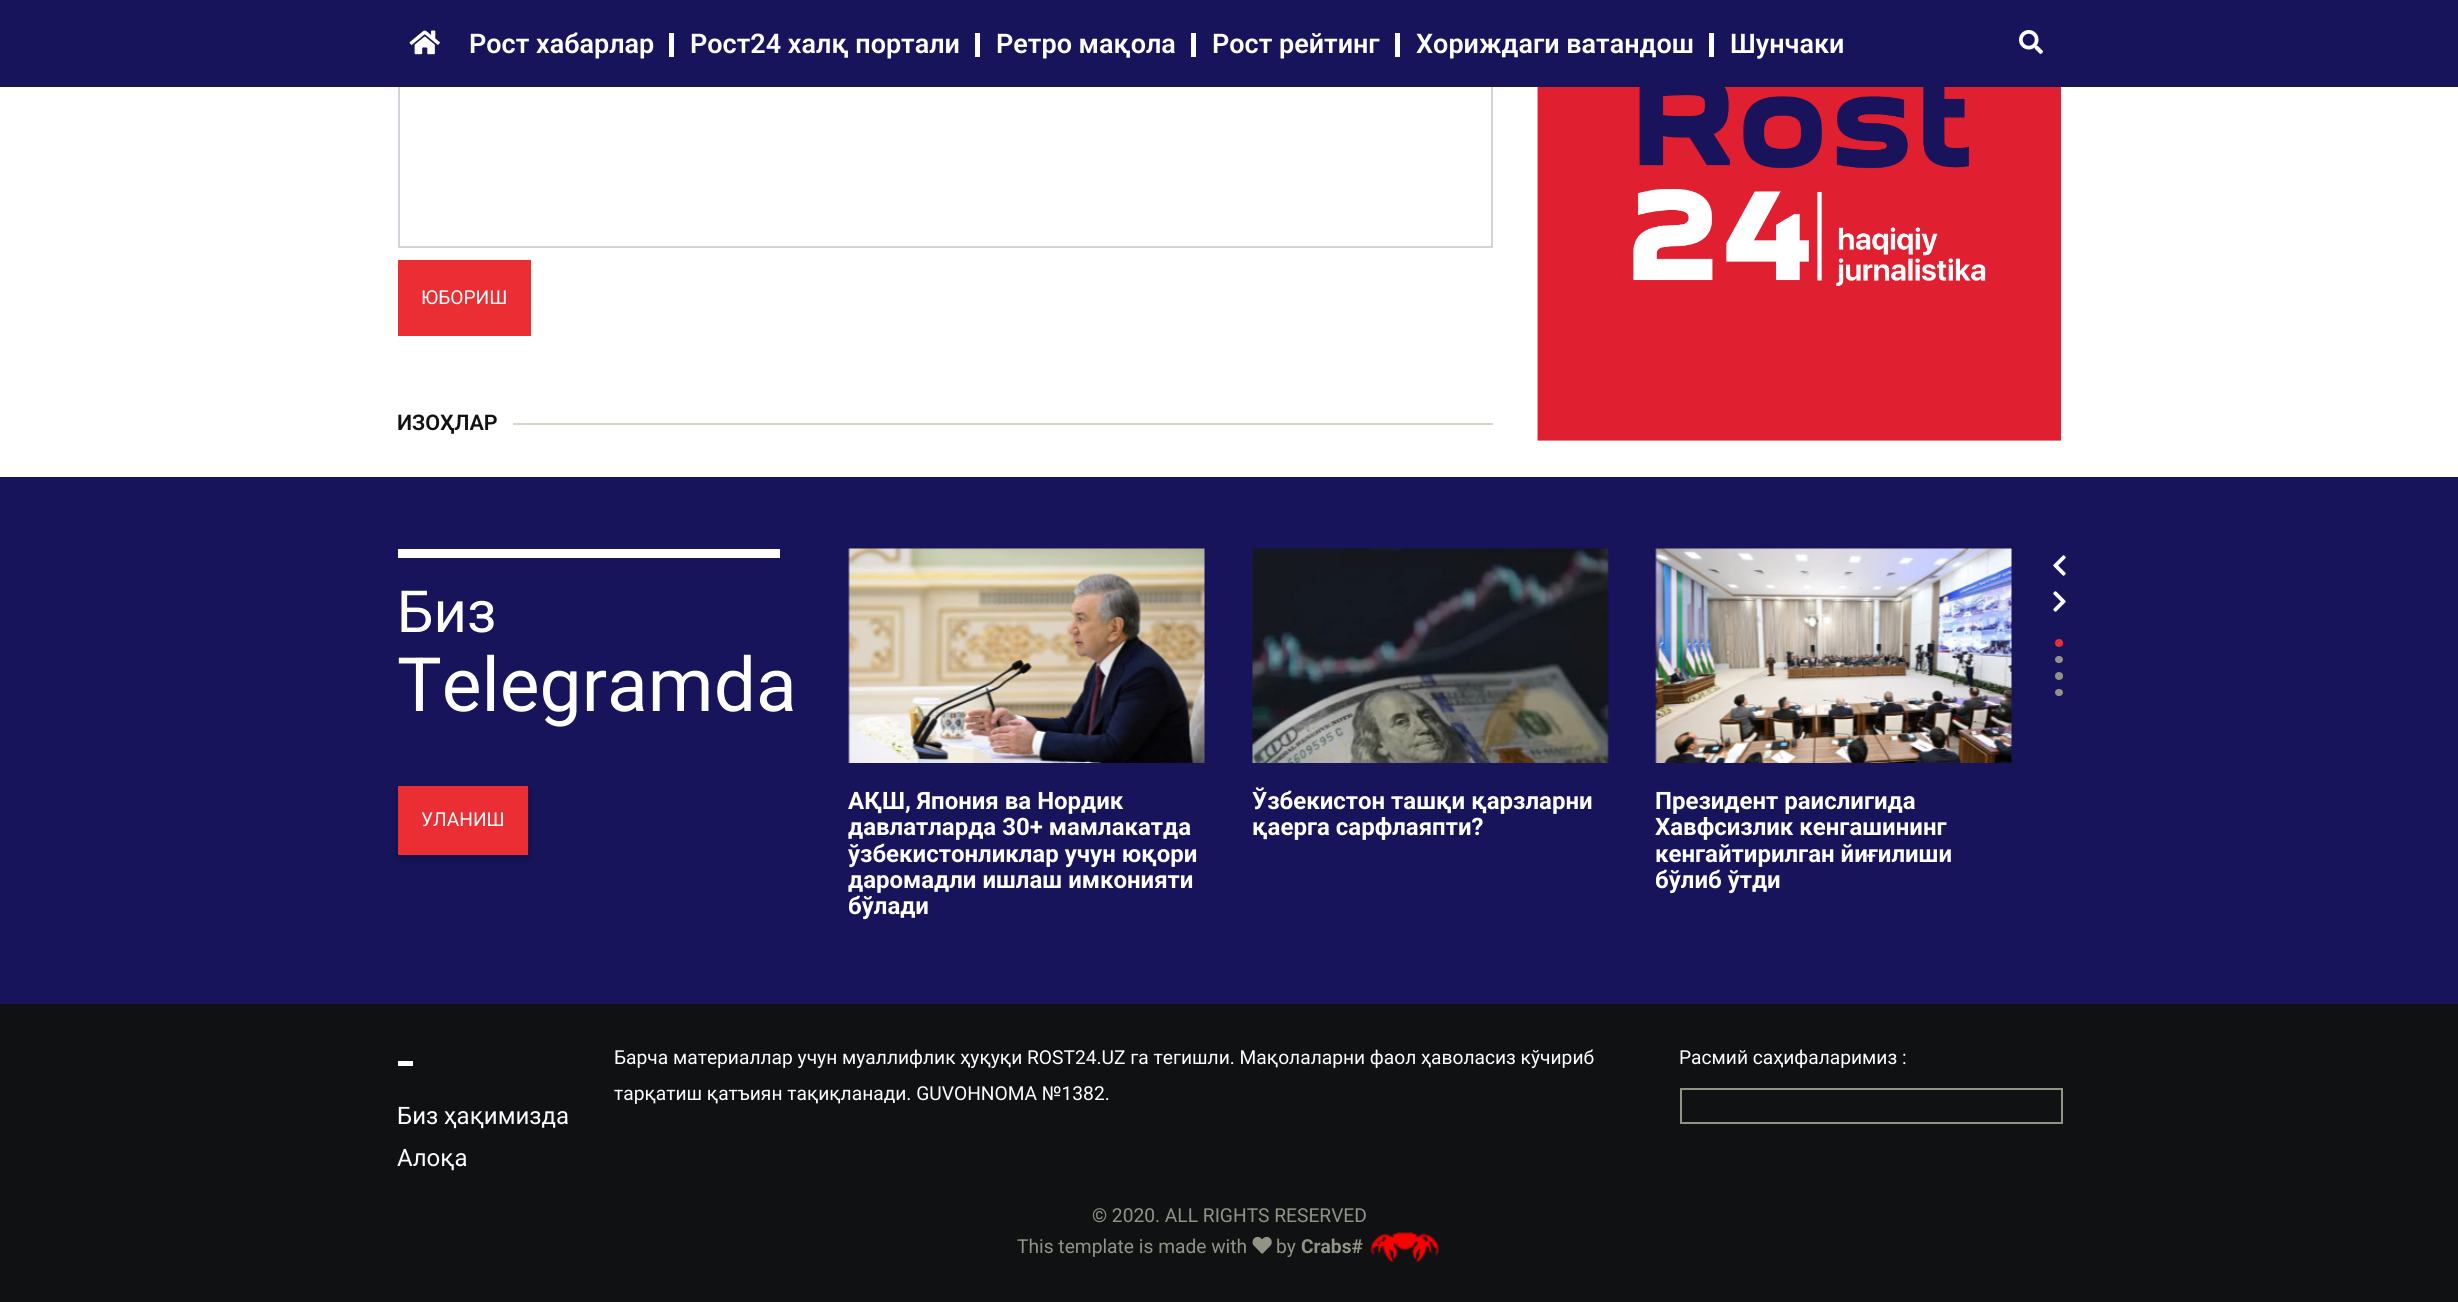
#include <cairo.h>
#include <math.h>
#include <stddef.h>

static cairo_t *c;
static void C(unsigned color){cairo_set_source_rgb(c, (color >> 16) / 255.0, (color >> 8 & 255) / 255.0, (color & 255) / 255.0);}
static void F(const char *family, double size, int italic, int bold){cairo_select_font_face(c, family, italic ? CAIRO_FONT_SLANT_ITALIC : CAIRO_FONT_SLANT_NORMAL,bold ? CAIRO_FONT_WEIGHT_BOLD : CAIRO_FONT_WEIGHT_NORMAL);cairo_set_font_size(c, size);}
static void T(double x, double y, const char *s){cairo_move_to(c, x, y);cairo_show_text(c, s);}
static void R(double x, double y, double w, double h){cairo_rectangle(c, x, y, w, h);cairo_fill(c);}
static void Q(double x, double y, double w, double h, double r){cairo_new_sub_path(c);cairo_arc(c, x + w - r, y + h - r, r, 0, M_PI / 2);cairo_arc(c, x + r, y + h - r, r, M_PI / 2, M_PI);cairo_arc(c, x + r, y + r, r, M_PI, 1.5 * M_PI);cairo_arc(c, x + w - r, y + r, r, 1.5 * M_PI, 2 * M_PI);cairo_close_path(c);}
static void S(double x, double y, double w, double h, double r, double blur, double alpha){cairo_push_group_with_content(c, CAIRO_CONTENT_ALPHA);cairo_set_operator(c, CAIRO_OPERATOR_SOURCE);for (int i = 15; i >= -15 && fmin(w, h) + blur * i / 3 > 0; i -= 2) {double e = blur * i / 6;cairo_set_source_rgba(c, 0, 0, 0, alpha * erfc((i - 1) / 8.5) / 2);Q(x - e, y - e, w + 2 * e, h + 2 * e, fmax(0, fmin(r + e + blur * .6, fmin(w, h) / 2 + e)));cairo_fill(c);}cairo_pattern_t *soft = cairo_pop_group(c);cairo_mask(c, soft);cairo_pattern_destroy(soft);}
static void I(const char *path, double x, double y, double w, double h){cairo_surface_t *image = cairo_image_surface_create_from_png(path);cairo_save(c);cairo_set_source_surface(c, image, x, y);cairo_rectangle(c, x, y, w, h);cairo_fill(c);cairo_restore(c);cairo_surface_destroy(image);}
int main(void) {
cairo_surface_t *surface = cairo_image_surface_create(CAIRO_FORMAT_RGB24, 2458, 1302);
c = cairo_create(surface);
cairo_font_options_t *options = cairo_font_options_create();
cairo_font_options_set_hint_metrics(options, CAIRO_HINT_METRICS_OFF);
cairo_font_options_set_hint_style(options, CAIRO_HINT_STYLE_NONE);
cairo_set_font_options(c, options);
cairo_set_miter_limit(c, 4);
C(0xffffff);
cairo_paint(c);
cairo_rectangle(c,399,12,1093,235);
C(0xced4da);
cairo_stroke(c);
C(0x17145b);
R(0,0,2458,87);
I("1.png",409,30,31,25);
F("Roboto SemiBold",27,0,0);
C(0xffffff);
T(469,53,"Рост хабарлар");
R(669,33,5,24);
T(690,53,"Рост24 халқ портали");
R(975,33,5,24);
T(996,53,"Ретро мақола");
R(1191,33,5,24);
T(1212,53,"Рост рейтинг");
R(1395,33,5,24);
T(1416,53,"Хориждаги ватандош");
R(1709,33,5,24);
T(1730,53,"Шунчаки");
I("2.png",2019,30,24,24);
C(0xea2e34);
R(398,260,133,76);
F("Roboto",19.2,0,0);
C(0xffffff);
T(421,304,"ЮБОРИШ");
F("Roboto SemiBold",21.5,0,0);
C(0x101113);
T(397,430,"ИЗОҲЛАР");
C(0xd5d5cc);
R(513,423,980,2);
I("3.png",1537,87,525,354);
C(0x17145b);
R(0,477,2458,527);
C(0xffffff);
R(398,549,382,9);
F("Roboto",58,0,0);
T(397,632,"Биз");
F("Roboto",75,0,0);
T(397,711,"Telegramda");
C(0x000000);
S(398,789,130,69,0,7.5,.12);
S(398,789,130,69,0,4,.16);
C(0xea2e34);
R(398,786,130,69);
F("Roboto",19.2,0,0);
C(0xffffff);
T(421,826,"УЛАНИШ");
I("4.png",2053,555,13,21);
I("5.png",2053,591,13,21);
C(0xea2e34);
cairo_arc(c,2059,643,4,0,2 * M_PI);
cairo_fill(c);
C(0x939385);
Q(2055,656,8,7,3.5);
cairo_fill(c);
cairo_arc(c,2059,676,4,0,2 * M_PI);
cairo_fill(c);
Q(2055,689,8,7,3.5);
cairo_fill(c);
I("6.png",848,548,357,215);
F("Roboto",24,0,1);
C(0xffffff);
T(848,809,"АҚШ, Япония ва Нордик");
T(848,835,"давлатларда 30+ мамлакатда");
T(848,862,"ўзбекистонликлар учун юқори");
T(848,888,"даромадли ишлаш имконияти");
T(848,914,"бўлади");
I("7.png",1252,548,357,215);
T(1252,809,"Ўзбекистон ташқи қарзларни");
T(1252,835,"қаерга сарфлаяпти?");
I("8.png",1655,548,357,215);
T(1655,809,"Президент раислигида");
T(1655,835,"Хавфсизлик кенгашининг");
T(1655,862,"кенгайтирилган йиғилиши");
T(1655,888,"бўлиб ўтди");
C(0x101113);
R(0,1004,2458,298);
F("Roboto",19.2,0,0);
C(0xffffff);
T(614,1064,"Барча материаллар учун муаллифлик ҳуқуқи ROST24.UZ га тегишли. Мақолаларни фаол ҳаволасиз кўчириб");
T(614,1100,"тарқатиш қатъиян тақиқланади. GUVOHNOMA №1382.");
T(1679,1064,"Расмий саҳифаларимиз :");
cairo_rectangle(c,1681,1089,381,34);
C(0x939385);
cairo_stroke(c);
C(0xffffff);
R(398,1061,15,5);
F("Roboto",24,0,0);
T(397,1124,"Биз ҳақимизда");
T(397,1166,"Алоқа");
F("Roboto",19.2,0,0);
C(0x939385);
T(1092,1222,"© 2020. ALL RIGHTS RESERVED");
T(1017,1253,"This template is made with");
I("9.png",1252,1236,20,18);
T(1276,1253,"by");
F("Roboto",19.2,0,1);
T(1301,1253,"Crabs#");
I("10.png",1370,1231,69,32);
cairo_surface_write_to_png(surface, "o.png");
cairo_font_options_destroy(options);
cairo_destroy(c);
cairo_surface_destroy(surface);
return 0;
}
